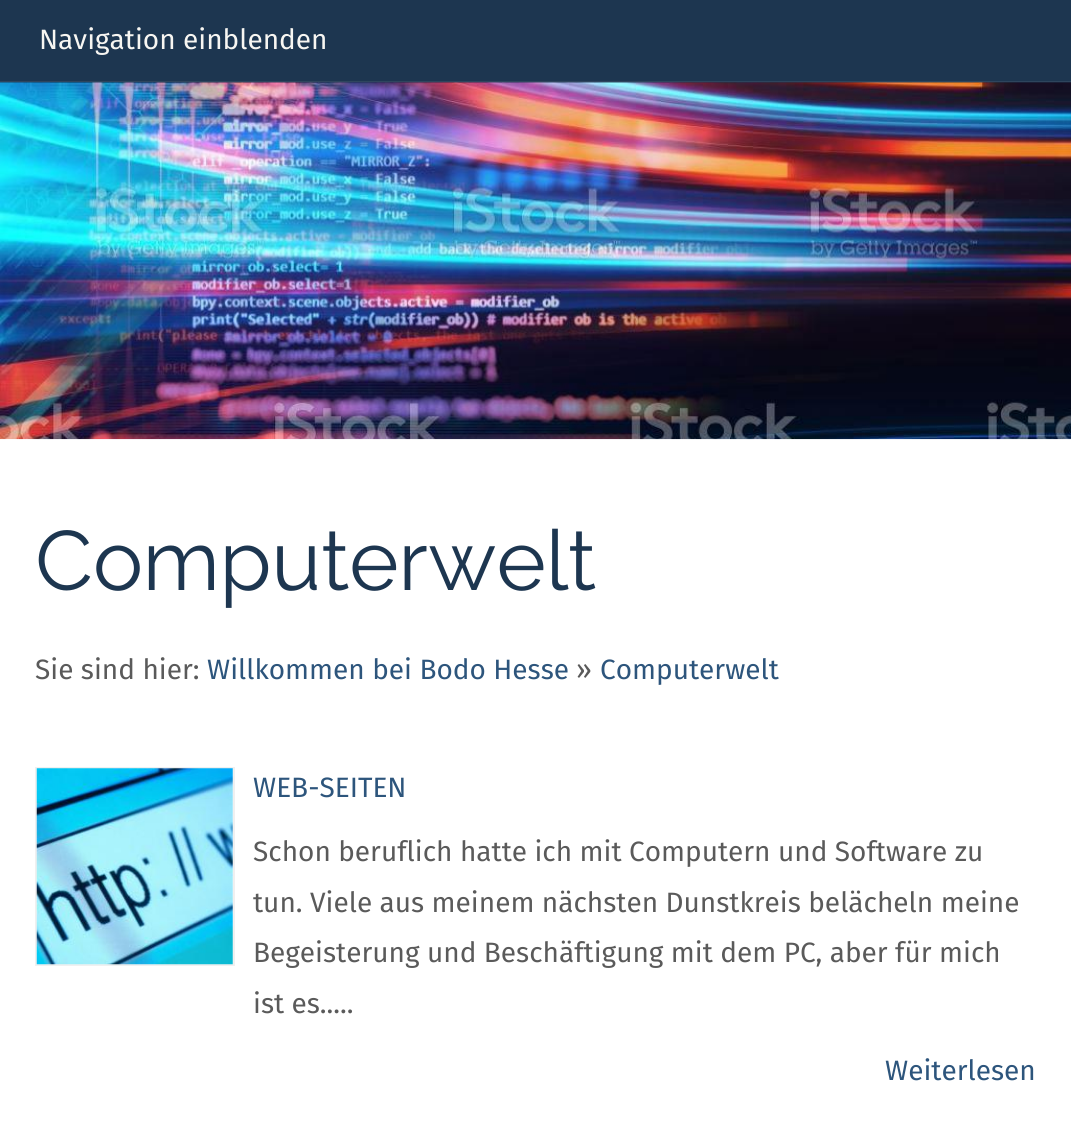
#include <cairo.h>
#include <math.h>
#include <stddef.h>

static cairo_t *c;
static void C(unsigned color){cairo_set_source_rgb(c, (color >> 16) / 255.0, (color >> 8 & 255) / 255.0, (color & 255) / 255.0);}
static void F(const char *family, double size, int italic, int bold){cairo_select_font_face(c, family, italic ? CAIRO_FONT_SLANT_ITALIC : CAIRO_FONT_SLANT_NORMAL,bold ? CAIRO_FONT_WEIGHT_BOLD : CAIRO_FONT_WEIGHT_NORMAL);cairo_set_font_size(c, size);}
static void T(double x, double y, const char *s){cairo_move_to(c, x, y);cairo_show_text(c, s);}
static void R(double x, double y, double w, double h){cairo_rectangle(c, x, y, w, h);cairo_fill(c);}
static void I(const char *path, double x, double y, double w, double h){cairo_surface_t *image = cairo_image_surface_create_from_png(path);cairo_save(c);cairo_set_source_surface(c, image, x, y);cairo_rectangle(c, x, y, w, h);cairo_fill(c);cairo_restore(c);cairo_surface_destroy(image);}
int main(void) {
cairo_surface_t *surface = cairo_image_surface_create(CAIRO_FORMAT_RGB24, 1071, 1124);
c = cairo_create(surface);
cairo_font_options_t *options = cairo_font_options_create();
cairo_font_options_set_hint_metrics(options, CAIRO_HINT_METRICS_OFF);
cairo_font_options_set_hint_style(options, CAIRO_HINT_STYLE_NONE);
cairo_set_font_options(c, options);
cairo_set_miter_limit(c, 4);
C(0x1d3650);
cairo_paint(c);
C(0x2e455d);
R(0,81,1071,1);
F("Fira Sans",28,0,0);
C(0xf7f6f2);
T(39,49,"Navigation einblenden");
C(0xffffff);
R(0,439,1071,685);
I("1.png",0,82,1071,358);
F("Raleway",84,0,0);
C(0x1d3650);
T(35,590,"Computerwelt");
F("Fira Sans",28,0,0);
C(0x5a5a5a);
T(35,679,"Sie sind hier:");
C(0x2d557c);
T(207,679,"Willkommen bei Bodo Hesse");
C(0x5a5a5a);
T(576,679,"»");
C(0x2d557c);
T(600,679,"Computerwelt");
cairo_rectangle(c,36,768,198,197);
C(0xf0f0f0);
cairo_stroke(c);
I("2.png",36,768,197,197);
C(0x2d557c);
T(253,797,"WEB-SEITEN");
C(0x5a5a5a);
T(253,861,"Schon beruflich hatte ich mit Computern und Software zu");
T(253,912,"tun. Viele aus meinem nächsten Dunstkreis belächeln meine");
T(253,962,"Begeisterung und Beschäftigung mit dem PC, aber für mich");
T(253,1013,"ist es.....");
C(0x2d557c);
T(885,1080,"Weiterlesen");
cairo_surface_write_to_png(surface, "o.png");
cairo_font_options_destroy(options);
cairo_destroy(c);
cairo_surface_destroy(surface);
return 0;
}
